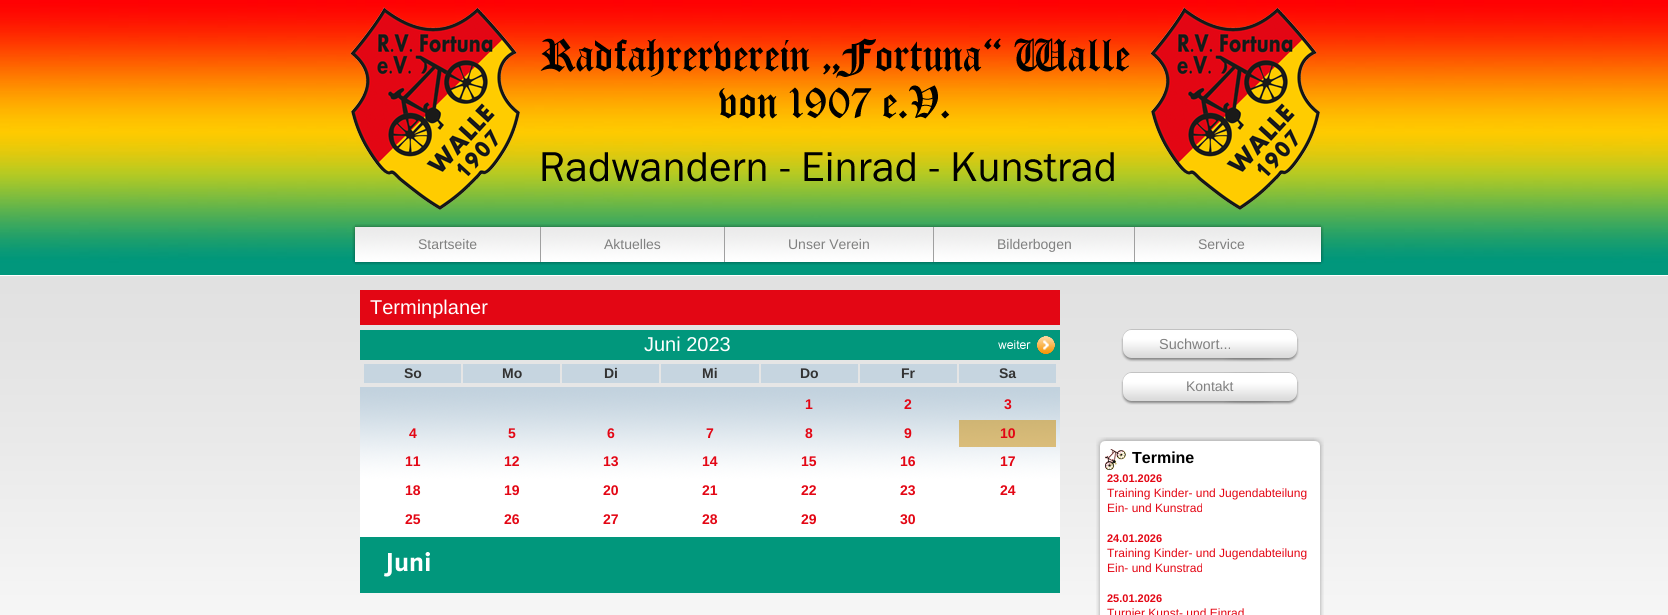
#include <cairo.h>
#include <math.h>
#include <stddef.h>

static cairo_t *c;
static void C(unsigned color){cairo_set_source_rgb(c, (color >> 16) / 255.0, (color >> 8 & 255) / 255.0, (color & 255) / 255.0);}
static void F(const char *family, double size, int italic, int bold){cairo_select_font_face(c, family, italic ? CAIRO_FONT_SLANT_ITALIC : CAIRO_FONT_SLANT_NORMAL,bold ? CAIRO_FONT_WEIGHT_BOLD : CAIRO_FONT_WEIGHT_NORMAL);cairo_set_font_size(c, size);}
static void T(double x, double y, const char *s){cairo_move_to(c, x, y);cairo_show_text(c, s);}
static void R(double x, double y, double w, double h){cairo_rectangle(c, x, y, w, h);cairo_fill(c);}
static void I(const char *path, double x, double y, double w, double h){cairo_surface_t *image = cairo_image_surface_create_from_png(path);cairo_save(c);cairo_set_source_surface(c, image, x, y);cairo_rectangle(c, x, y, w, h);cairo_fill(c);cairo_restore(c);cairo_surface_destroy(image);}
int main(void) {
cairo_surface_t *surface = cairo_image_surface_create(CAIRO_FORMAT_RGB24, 1668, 615);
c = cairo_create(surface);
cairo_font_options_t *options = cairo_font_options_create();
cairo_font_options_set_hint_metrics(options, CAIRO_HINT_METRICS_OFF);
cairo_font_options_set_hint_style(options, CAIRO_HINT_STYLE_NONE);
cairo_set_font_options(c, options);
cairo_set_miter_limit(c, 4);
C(0xffffff);
cairo_paint(c);
I("1.png",0,0,1668,275);
I("2.png",350,7,970,203);
I("3.png",352,225,3,39);
I("4.png",355,224,966,41);
F("Liberation Sans",14,0,0);
C(0x808080);
T(418,249,"Startseite");
C(0xa0a0a0);
R(540,227,1,35);
C(0x808080);
T(604,249,"Aktuelles");
C(0xa0a0a0);
R(724,227,1,35);
C(0x808080);
T(788,249,"Unser Verein");
C(0xa0a0a0);
R(933,227,1,35);
C(0x808080);
T(997,249,"Bilderbogen");
C(0xa0a0a0);
R(1134,227,1,35);
C(0x808080);
T(1198,249,"Service");
I("5.png",1321,225,3,39);
I("16.png",0,276,1668,339);
C(0xe30614);
R(360,290,700,35);
F("Liberation Sans",20,0,0);
C(0xffffff);
T(370,314,"Terminplaner");
C(0x01977c);
R(360,330,700,30);
C(0xffffff);
T(644,351,"Juni 2023");
I("6.png",998,336,57,18);
C(0xc6d5e0);
R(364,364,97,19);
F("Liberation Sans",14,0,1);
C(0x333333);
T(404,378,"So");
C(0xc6d5e0);
R(463,364,97,19);
C(0x333333);
T(502,378,"Mo");
C(0xc6d5e0);
R(562,364,97,19);
C(0x333333);
T(604,378,"Di");
C(0xc6d5e0);
R(661,364,98,19);
C(0x333333);
T(702,378,"Mi");
C(0xc6d5e0);
R(761,364,97,19);
C(0x333333);
T(800,378,"Do");
C(0xc6d5e0);
R(860,364,97,19);
C(0x333333);
T(901,378,"Fr");
C(0xc6d5e0);
R(959,364,97,19);
C(0x333333);
T(999,378,"Sa");
I("7.png",360,387,700,150);
C(0xe30614);
T(805,409,"1");
T(904,409,"2");
T(1004,409,"3");
T(409,438,"4");
T(508,438,"5");
T(607,438,"6");
T(706,438,"7");
T(805,438,"8");
T(904,438,"9");
cairo_set_source_rgba(c,0.796,0.545,0,0.5);
R(959,420,97,27);
C(0xe30614);
T(1000,438,"10");
T(405,466,"11");
T(504,466,"12");
T(603,466,"13");
T(702,466,"14");
T(801,466,"15");
T(900,466,"16");
T(1000,466,"17");
T(405,495,"18");
T(504,495,"19");
T(603,495,"20");
T(702,495,"21");
T(801,495,"22");
T(900,495,"23");
T(1000,495,"24");
T(405,524,"25");
T(504,524,"26");
T(603,524,"27");
T(702,524,"28");
T(801,524,"29");
T(900,524,"30");
C(0x01977c);
R(360,537,700,56);
I("8.png",384,552,46,25);
I("9.png",1121,329,178,33);
F("Liberation Sans",14.5,0,0);
C(0x808080);
T(1159,349,"Suchwort...");
I("10.png",1121,372,178,33);
F("Liberation Sans",14,0,0);
T(1186,391,"Kontakt");
I("11.png",1096,437,10,9);
I("12.png",1106,437,208,9);
I("13.png",1314,437,10,9);
I("14.png",1096,446,228,169);
I("15.png",1105,449,21,21);
F("Liberation Sans",16,0,1);
C(0x000000);
T(1132,463,"Termine");
F("Liberation Sans",11,0,1);
C(0xe30614);
T(1107,482,"23.01.2026");
F("Liberation Sans",12,0,0);
T(1107,497,"Training Kinder- und Jugendabteilung");
T(1107,512,"Ein- und Kunstrad");
F("Liberation Sans",11,0,1);
T(1107,542,"24.01.2026");
F("Liberation Sans",12,0,0);
T(1107,557,"Training Kinder- und Jugendabteilung");
T(1107,572,"Ein- und Kunstrad");
F("Liberation Sans",11,0,1);
T(1107,602,"25.01.2026");
F("Liberation Sans",12,0,0);
T(1107,617,"Turnier Kunst- und Einrad");
cairo_surface_write_to_png(surface, "o.png");
cairo_font_options_destroy(options);
cairo_destroy(c);
cairo_surface_destroy(surface);
return 0;
}
